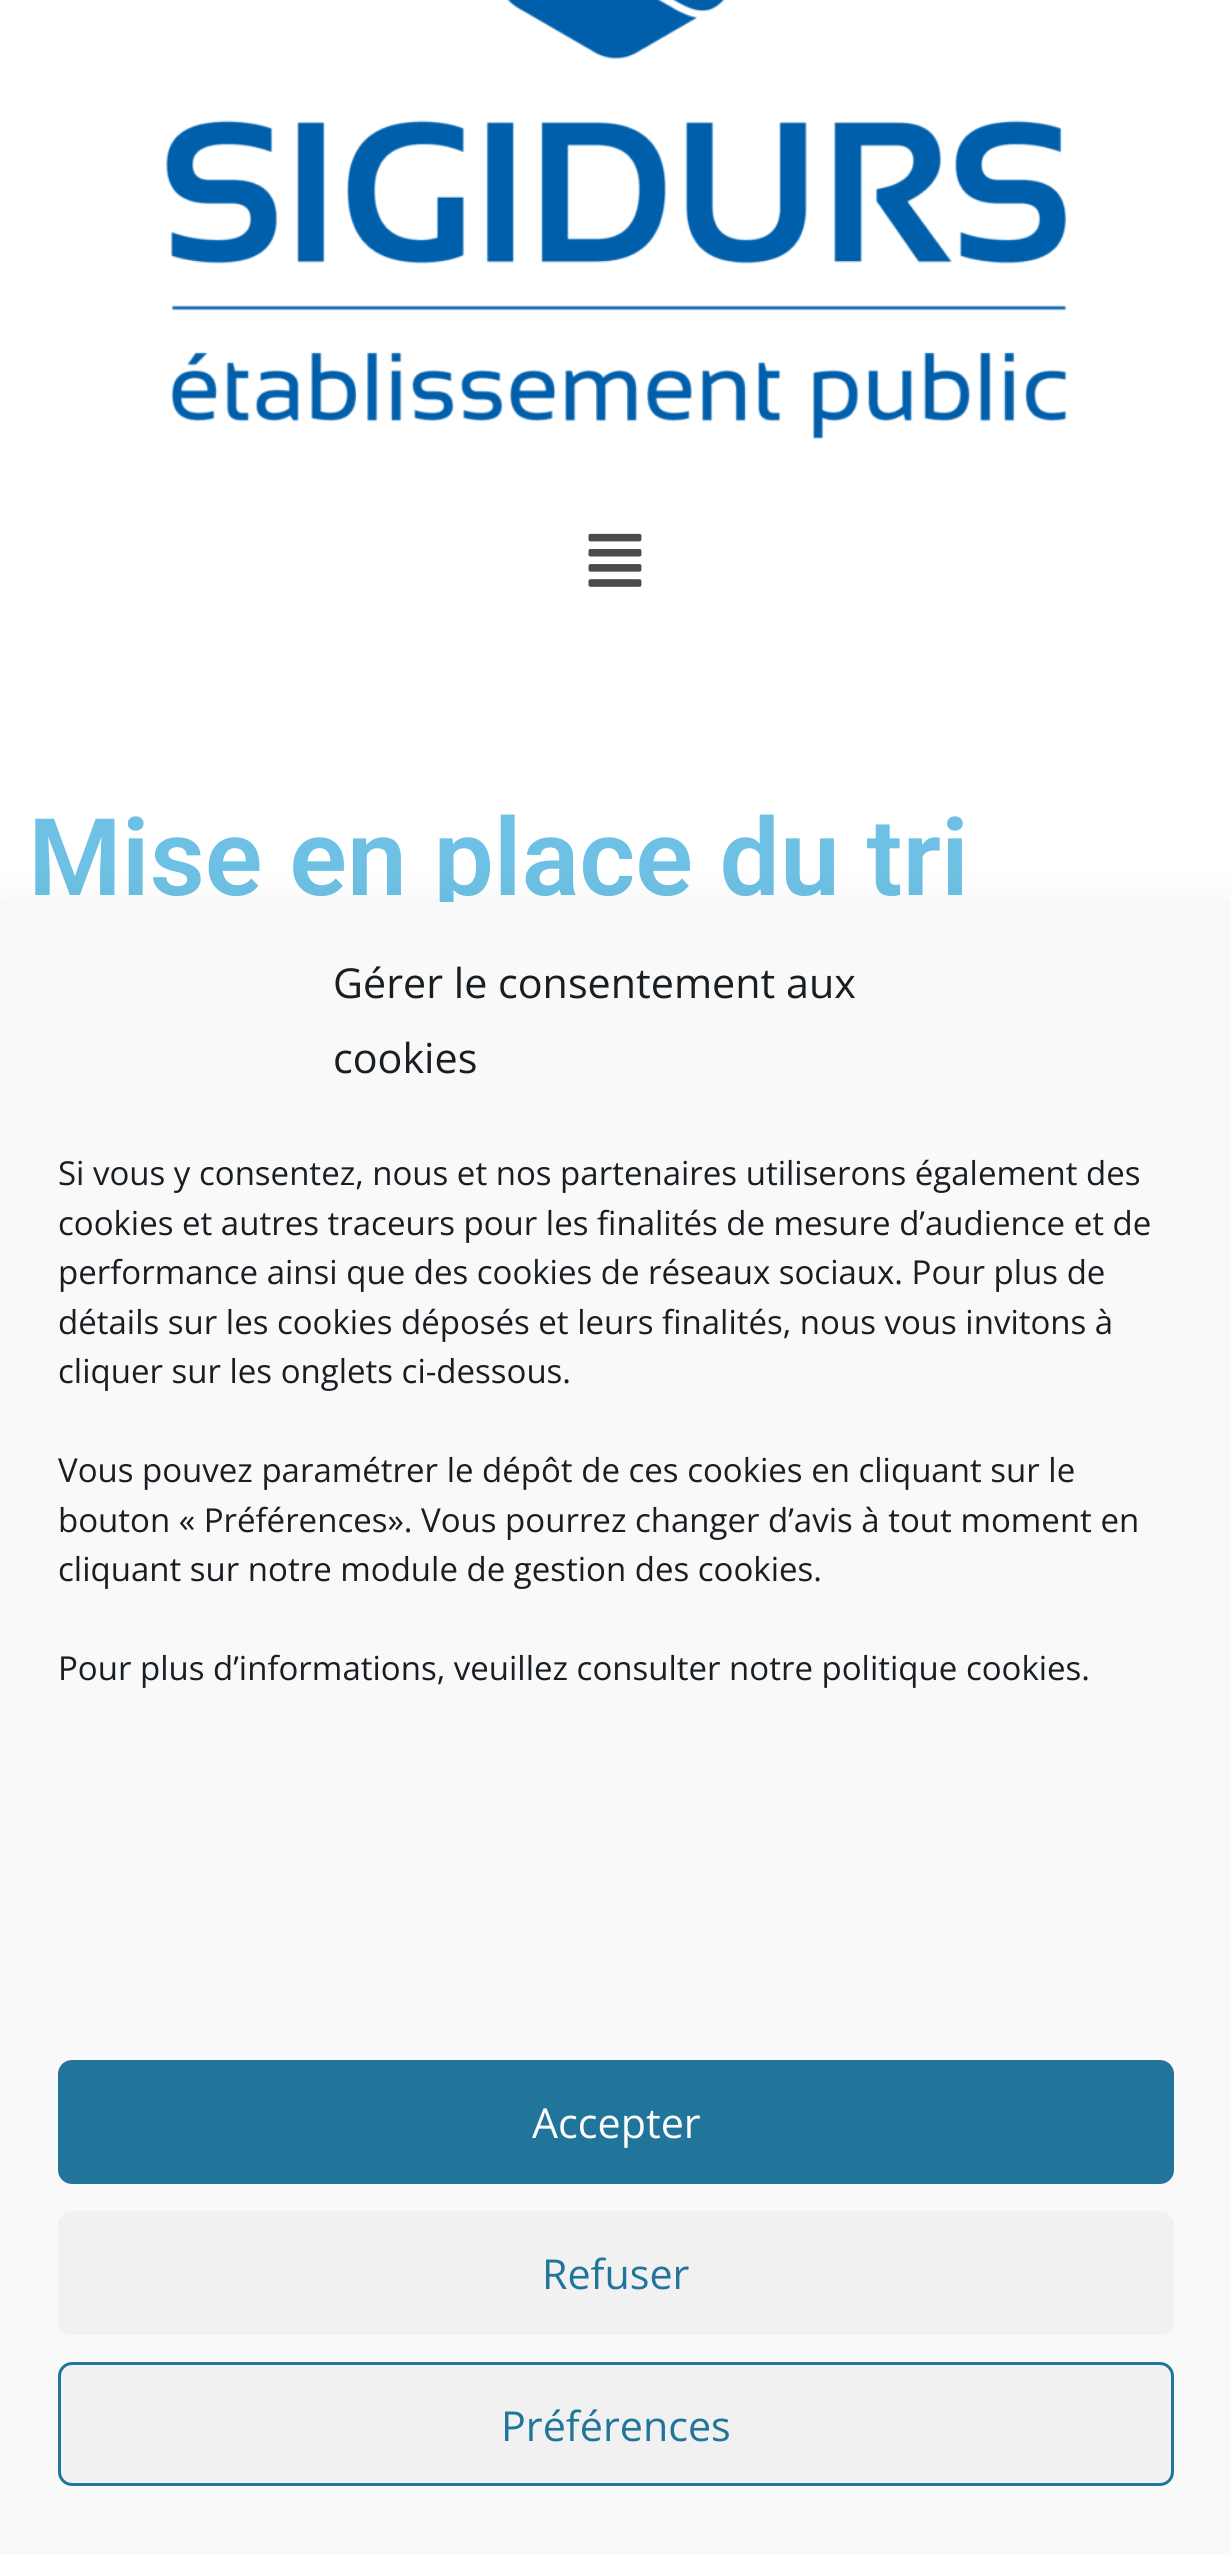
#include <cairo.h>
#include <math.h>
#include <stddef.h>

static cairo_t *c;
static void C(unsigned color){cairo_set_source_rgb(c, (color >> 16) / 255.0, (color >> 8 & 255) / 255.0, (color & 255) / 255.0);}
static void F(const char *family, double size, int italic, int bold){cairo_select_font_face(c, family, italic ? CAIRO_FONT_SLANT_ITALIC : CAIRO_FONT_SLANT_NORMAL,bold ? CAIRO_FONT_WEIGHT_BOLD : CAIRO_FONT_WEIGHT_NORMAL);cairo_set_font_size(c, size);}
static void T(double x, double y, const char *s){cairo_move_to(c, x, y);cairo_show_text(c, s);}
static void R(double x, double y, double w, double h){cairo_rectangle(c, x, y, w, h);cairo_fill(c);}
static void Q(double x, double y, double w, double h, double r){cairo_new_sub_path(c);cairo_arc(c, x + w - r, y + h - r, r, 0, M_PI / 2);cairo_arc(c, x + r, y + h - r, r, M_PI / 2, M_PI);cairo_arc(c, x + r, y + r, r, M_PI, 1.5 * M_PI);cairo_arc(c, x + w - r, y + r, r, 1.5 * M_PI, 2 * M_PI);cairo_close_path(c);}
static void S(double x, double y, double w, double h, double r, double blur, double alpha){cairo_push_group_with_content(c, CAIRO_CONTENT_ALPHA);cairo_set_operator(c, CAIRO_OPERATOR_SOURCE);for (int i = 15; i >= -15 && fmin(w, h) + blur * i / 3 > 0; i -= 2) {double e = blur * i / 6;cairo_set_source_rgba(c, 0, 0, 0, alpha * erfc((i - 1) / 8.5) / 2);Q(x - e, y - e, w + 2 * e, h + 2 * e, fmax(0, fmin(r + e + blur * .6, fmin(w, h) / 2 + e)));cairo_fill(c);}cairo_pattern_t *soft = cairo_pop_group(c);cairo_mask(c, soft);cairo_pattern_destroy(soft);}
static void I(const char *path, double x, double y, double w, double h){cairo_surface_t *image = cairo_image_surface_create_from_png(path);cairo_save(c);cairo_set_source_surface(c, image, x, y);cairo_rectangle(c, x, y, w, h);cairo_fill(c);cairo_restore(c);cairo_surface_destroy(image);}
int main(void) {
cairo_surface_t *surface = cairo_image_surface_create(CAIRO_FORMAT_RGB24, 1231, 2555);
c = cairo_create(surface);
cairo_font_options_t *options = cairo_font_options_create();
cairo_font_options_set_hint_metrics(options, CAIRO_HINT_METRICS_OFF);
cairo_font_options_set_hint_style(options, CAIRO_HINT_STYLE_NONE);
cairo_set_font_options(c, options);
cairo_set_miter_limit(c, 4);
C(0xffffff);
cairo_paint(c);
I("1.png",165,0,902,439);
I("2.png",588,533,54,54);
F("Roboto SemiBold",107.25,0,0);
C(0x6ec1e4);
T(28,895,"Mise en place du tri");
C(0x000000);
S(0,930,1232,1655,0,27.5,.19);
C(0xf9f9f9);
R(0,902,1231,1653);
F("Open Sans",41.25,0,0);
C(0x191e23);
T(333,998,"Gérer le consentement aux");
T(333,1073,"cookies");
F("Open Sans",33,0,0);
T(58,1185,"Si vous y consentez, nous et nos partenaires utiliserons également des");
T(58,1235,"cookies et autres traceurs pour les finalités de mesure d’audience et de");
T(58,1284,"performance ainsi que des cookies de réseaux sociaux. Pour plus de");
T(58,1334,"détails sur les cookies déposés et leurs finalités, nous vous invitons à");
T(58,1383,"cliquer sur les onglets ci-dessous.");
T(58,1482,"Vous pouvez paramétrer le dépôt de ces cookies en cliquant sur le");
T(58,1532,"bouton « Préférences». Vous pourrez changer d’avis à tout moment en");
T(58,1581,"cliquant sur notre module de gestion des cookies.");
T(58,1680,"Pour plus d’informations, veuillez consulter notre politique cookies.");
C(0x21759b);
Q(59.5,2061.5,1113,121,12.5);
cairo_fill_preserve(c);
cairo_set_line_width(c,3);
cairo_stroke(c);
F("Open Sans",41.25,0,0);
C(0xffffff);
T(532,2138,"Accepter");
C(0xf1f1f1);
Q(58,2211,1116,124,14);
cairo_fill(c);
C(0x21759b);
T(542,2289,"Refuser");
C(0xf1f1f1);
Q(59.5,2363.5,1113,121,12.5);
cairo_fill_preserve(c);
C(0x21759b);
cairo_stroke(c);
T(501,2441,"Préférences");
cairo_surface_write_to_png(surface, "o.png");
cairo_font_options_destroy(options);
cairo_destroy(c);
cairo_surface_destroy(surface);
return 0;
}
